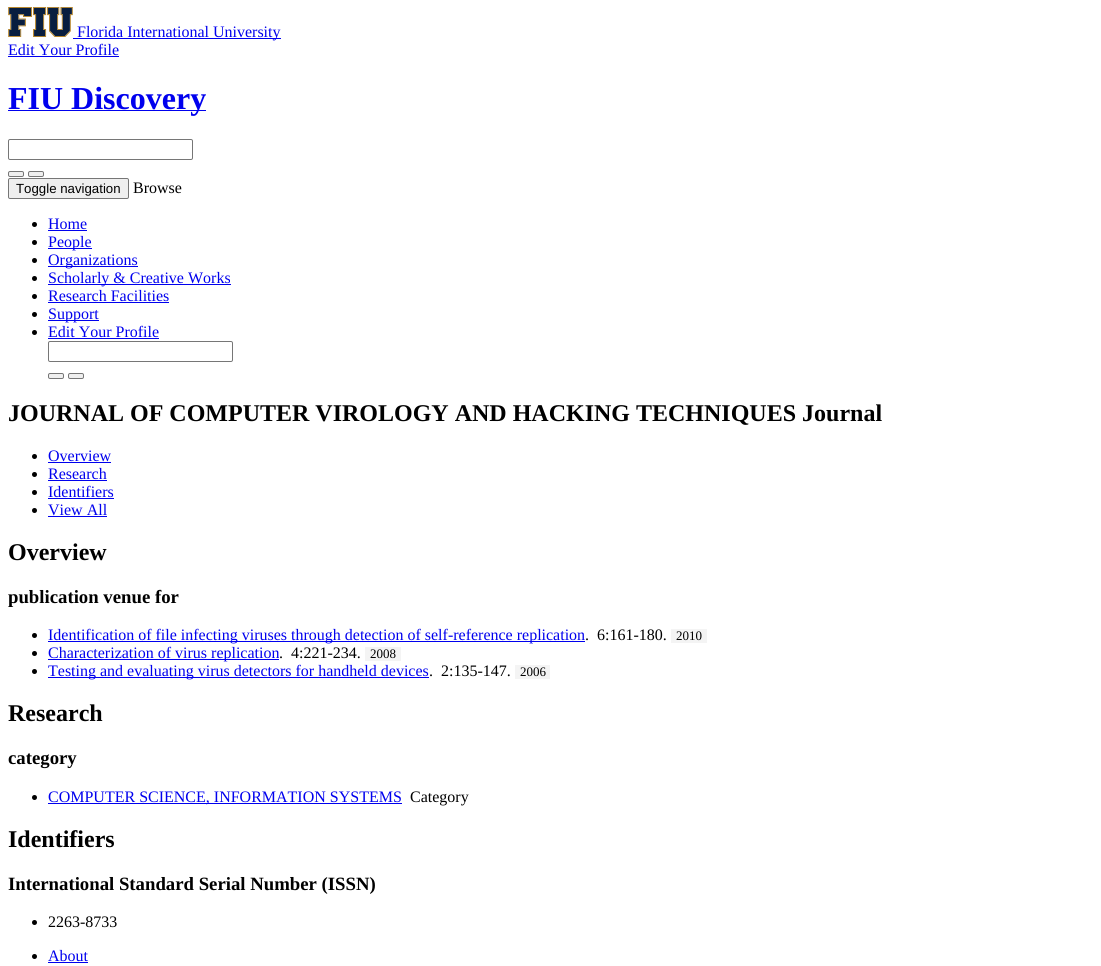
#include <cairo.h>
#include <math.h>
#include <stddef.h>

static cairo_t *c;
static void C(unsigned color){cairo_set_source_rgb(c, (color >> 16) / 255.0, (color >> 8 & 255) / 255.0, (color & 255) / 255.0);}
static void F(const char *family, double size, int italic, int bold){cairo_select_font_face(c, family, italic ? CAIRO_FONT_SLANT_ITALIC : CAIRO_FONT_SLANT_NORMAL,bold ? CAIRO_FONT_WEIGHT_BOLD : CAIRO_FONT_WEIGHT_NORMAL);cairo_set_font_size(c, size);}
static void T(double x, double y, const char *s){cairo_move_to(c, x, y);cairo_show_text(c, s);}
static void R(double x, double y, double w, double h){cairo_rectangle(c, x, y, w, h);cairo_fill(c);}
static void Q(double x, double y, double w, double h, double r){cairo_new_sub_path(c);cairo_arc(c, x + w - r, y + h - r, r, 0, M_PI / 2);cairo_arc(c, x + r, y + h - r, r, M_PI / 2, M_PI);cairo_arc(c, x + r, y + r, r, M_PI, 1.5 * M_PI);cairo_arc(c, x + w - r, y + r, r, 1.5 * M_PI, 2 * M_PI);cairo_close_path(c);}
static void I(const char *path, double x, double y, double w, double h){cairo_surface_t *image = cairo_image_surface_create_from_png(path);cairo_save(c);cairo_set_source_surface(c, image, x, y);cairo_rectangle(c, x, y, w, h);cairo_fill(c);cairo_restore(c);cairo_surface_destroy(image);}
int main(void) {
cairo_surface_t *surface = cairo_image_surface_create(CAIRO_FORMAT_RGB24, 1101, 966);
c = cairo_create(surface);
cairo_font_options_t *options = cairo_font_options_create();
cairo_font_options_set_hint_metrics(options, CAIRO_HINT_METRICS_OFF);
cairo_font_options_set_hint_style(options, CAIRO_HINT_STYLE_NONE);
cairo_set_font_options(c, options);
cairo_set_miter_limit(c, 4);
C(0xffffff);
cairo_paint(c);
I("1.png",8,7,65,30);
C(0x0000ee);
R(73,38,208,1);
F("Liberation Serif",16,0,0);
T(77,37,"Florida International University");
T(8,55,"Edit Your Profile");
R(8,56,111,1);
R(8,110,198,1);
F("Liberation Serif",32,0,1);
T(8,109,"FIU Discovery");
Q(8.5,139.5,184,20,1.5);
C(0x767676);
cairo_set_line_width(c,1);
cairo_stroke(c);
C(0xefefef);
Q(8.5,171.5,15,5,1.5);
cairo_fill_preserve(c);
C(0x767676);
cairo_stroke(c);
C(0xefefef);
Q(28.5,171.5,15,5,1.5);
cairo_fill_preserve(c);
C(0x767676);
cairo_stroke(c);
C(0xefefef);
Q(8.5,178.5,120,20,1.5);
cairo_fill_preserve(c);
C(0x767676);
cairo_stroke(c);
F("Liberation Sans",13.25,0,0);
C(0x000000);
T(16,193,"Toggle navigation");
F("Liberation Serif",16,0,0);
T(133,193,"Browse");
cairo_new_path(c);
cairo_arc(c,34.5,224.5,2.5,0,2 * M_PI);
cairo_fill(c);
C(0x0000ee);
T(48,229,"Home");
R(48,230,39,1);
C(0x000000);
cairo_new_path(c);
cairo_arc(c,34.5,242.5,2.5,0,2 * M_PI);
cairo_fill(c);
C(0x0000ee);
R(48,248,44,1);
T(48,247,"People");
C(0x000000);
cairo_new_path(c);
cairo_arc(c,34.5,260.5,2.5,0,2 * M_PI);
cairo_fill(c);
C(0x0000ee);
R(48,266,90,1);
T(48,265,"Organizations");
C(0x000000);
cairo_new_path(c);
cairo_arc(c,34.5,278.5,2.5,0,2 * M_PI);
cairo_fill(c);
C(0x0000ee);
R(48,284,183,1);
T(48,283,"Scholarly & Creative Works");
C(0x000000);
cairo_new_path(c);
cairo_arc(c,34.5,296.5,2.5,0,2 * M_PI);
cairo_fill(c);
C(0x0000ee);
T(48,301,"Research Facilities");
R(48,302,121,1);
C(0x000000);
cairo_new_path(c);
cairo_arc(c,34.5,314.5,2.5,0,2 * M_PI);
cairo_fill(c);
C(0x0000ee);
R(48,320,51,1);
T(48,319,"Support");
C(0x000000);
cairo_new_path(c);
cairo_arc(c,34.5,332.5,2.5,0,2 * M_PI);
cairo_fill(c);
C(0x0000ee);
T(48,337,"Edit Your Profile");
R(48,338,111,1);
Q(48.5,341.5,184,20,1.5);
C(0x767676);
cairo_stroke(c);
C(0xefefef);
Q(48.5,373.5,15,5,1.5);
cairo_fill_preserve(c);
C(0x767676);
cairo_stroke(c);
C(0xefefef);
Q(68.5,373.5,15,5,1.5);
cairo_fill_preserve(c);
C(0x767676);
cairo_stroke(c);
F("Liberation Serif",24,0,1);
C(0x000000);
T(8,421,"JOURNAL OF COMPUTER VIROLOGY AND HACKING TECHNIQUES Journal");
cairo_new_path(c);
cairo_arc(c,34.5,456.5,2.5,0,2 * M_PI);
cairo_fill(c);
F("Liberation Serif",16,0,0);
C(0x0000ee);
T(48,461,"Overview");
R(48,462,63,1);
C(0x000000);
cairo_new_path(c);
cairo_arc(c,34.5,474.5,2.5,0,2 * M_PI);
cairo_fill(c);
C(0x0000ee);
T(48,479,"Research");
R(48,480,59,1);
C(0x000000);
cairo_new_path(c);
cairo_arc(c,34.5,492.5,2.5,0,2 * M_PI);
cairo_fill(c);
C(0x0000ee);
T(48,497,"Identifiers");
R(48,498,66,1);
C(0x000000);
cairo_new_path(c);
cairo_arc(c,34.5,510.5,2.5,0,2 * M_PI);
cairo_fill(c);
C(0x0000ee);
T(48,515,"View All");
R(48,516,59,1);
F("Liberation Serif",24,0,1);
C(0x000000);
T(8,560,"Overview");
F("Liberation Serif",18.75,0,1);
T(8,603,"publication venue for");
cairo_new_path(c);
cairo_arc(c,34.5,635.5,2.5,0,2 * M_PI);
cairo_fill(c);
C(0x0000ee);
R(48,641,537,1);
F("Liberation Serif",16,0,0);
T(48,640,"Identification of file infecting viruses through detection of self-reference replication");
C(0x000000);
T(597,640,"6:161-180.");
C(0xf4f4f4);
R(671,629,36,14);
F("Liberation Serif",13,0,0);
C(0x000000);
T(676,640,"2010");
F("Liberation Serif",16,0,0);
T(585,640,".");
cairo_new_path(c);
cairo_arc(c,34.5,653.5,2.5,0,2 * M_PI);
cairo_fill(c);
C(0x0000ee);
R(48,659,231,1);
T(48,658,"Characterization of virus replication");
C(0x000000);
T(291,658,"4:221-234.");
C(0xf4f4f4);
R(365,647,36,14);
F("Liberation Serif",13,0,0);
C(0x000000);
T(370,658,"2008");
F("Liberation Serif",16,0,0);
T(279,658,".");
cairo_new_path(c);
cairo_arc(c,34.5,671.5,2.5,0,2 * M_PI);
cairo_fill(c);
C(0x0000ee);
R(48,677,381,1);
T(48,676,"Testing and evaluating virus detectors for handheld devices");
C(0x000000);
T(441,676,"2:135-147.");
C(0xf4f4f4);
R(515,665,35,14);
F("Liberation Serif",13,0,0);
C(0x000000);
T(520,676,"2006");
F("Liberation Serif",16,0,0);
T(429,676,".");
F("Liberation Serif",24,0,1);
T(8,721,"Research");
F("Liberation Serif",18.75,0,1);
T(8,764,"category");
cairo_new_path(c);
cairo_arc(c,34.5,797.5,2.5,0,2 * M_PI);
cairo_fill(c);
C(0x0000ee);
R(48,803,354,1);
F("Liberation Serif",16,0,0);
T(48,802,"COMPUTER SCIENCE, INFORMATION SYSTEMS");
C(0x000000);
T(410,802,"Category");
F("Liberation Serif",24,0,1);
T(8,847,"Identifiers");
F("Liberation Serif",18.75,0,1);
T(8,890,"International Standard Serial Number (ISSN)");
cairo_new_path(c);
cairo_arc(c,34.5,922.5,2.5,0,2 * M_PI);
cairo_fill(c);
F("Liberation Serif",16,0,0);
T(48,927,"2263-8733");
cairo_new_path(c);
cairo_arc(c,34.5,956.5,2.5,0,2 * M_PI);
cairo_fill(c);
C(0x0000ee);
T(48,961,"About");
R(48,962,40,1);
cairo_surface_write_to_png(surface, "o.png");
cairo_font_options_destroy(options);
cairo_destroy(c);
cairo_surface_destroy(surface);
return 0;
}
